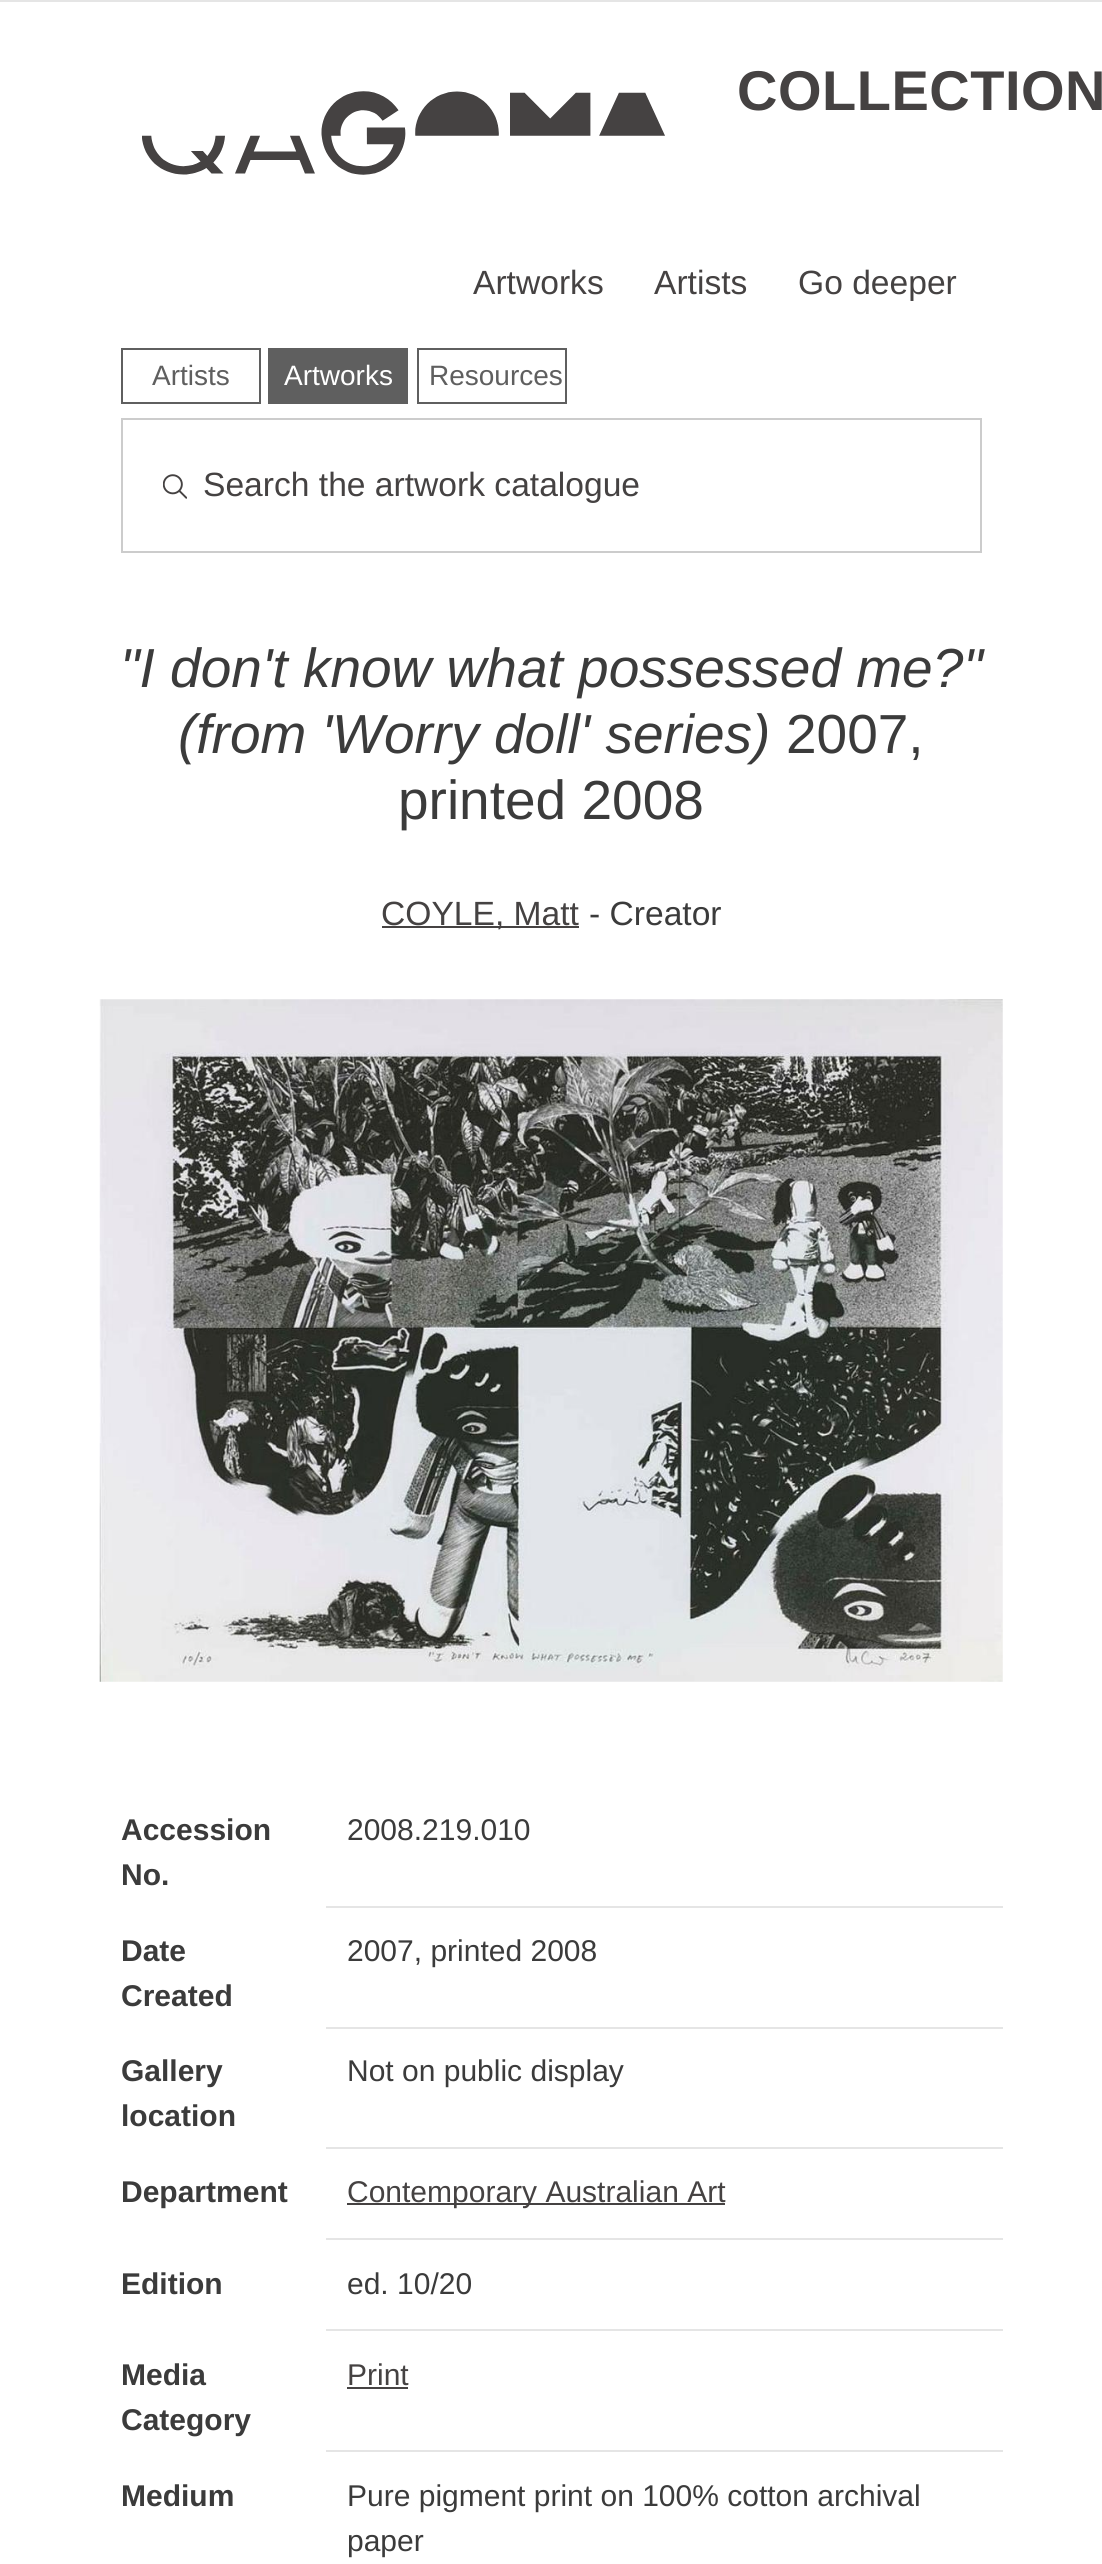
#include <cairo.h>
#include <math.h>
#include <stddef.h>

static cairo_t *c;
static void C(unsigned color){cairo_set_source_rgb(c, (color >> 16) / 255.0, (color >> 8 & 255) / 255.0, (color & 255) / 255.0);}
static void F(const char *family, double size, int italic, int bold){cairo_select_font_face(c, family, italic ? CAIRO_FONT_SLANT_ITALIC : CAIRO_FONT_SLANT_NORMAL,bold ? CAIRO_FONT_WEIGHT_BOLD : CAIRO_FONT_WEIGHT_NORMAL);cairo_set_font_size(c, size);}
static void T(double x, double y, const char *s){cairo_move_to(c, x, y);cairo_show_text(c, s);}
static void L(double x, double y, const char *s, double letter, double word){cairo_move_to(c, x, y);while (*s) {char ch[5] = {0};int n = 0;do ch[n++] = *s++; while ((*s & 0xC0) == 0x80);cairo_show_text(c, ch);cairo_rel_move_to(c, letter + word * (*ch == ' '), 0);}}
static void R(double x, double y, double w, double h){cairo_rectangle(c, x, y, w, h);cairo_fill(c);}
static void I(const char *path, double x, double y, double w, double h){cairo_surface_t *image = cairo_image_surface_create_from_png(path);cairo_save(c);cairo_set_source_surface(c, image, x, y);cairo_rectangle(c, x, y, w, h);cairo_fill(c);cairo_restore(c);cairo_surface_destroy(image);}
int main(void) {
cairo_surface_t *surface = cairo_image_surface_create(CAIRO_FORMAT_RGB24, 1102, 2564);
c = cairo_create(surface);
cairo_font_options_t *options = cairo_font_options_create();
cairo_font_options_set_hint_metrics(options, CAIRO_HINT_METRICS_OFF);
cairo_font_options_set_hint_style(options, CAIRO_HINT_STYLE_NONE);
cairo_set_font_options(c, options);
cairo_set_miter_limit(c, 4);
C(0xffffff);
cairo_paint(c);
C(0xe5e5e5);
R(0,0,1102,2);
I("1.png",142,91,523,84);
F("Liberation Sans",56,0,1);
C(0x454242);
L(737,110,"COLLECTION",.5,0);
F("Liberation Sans",33.6,0,0);
T(473,294,"Artworks");
T(654,294,"Artists");
T(798,294,"Go deeper");
cairo_rectangle(c,122,349,138,54);
C(0x5f5f5f);
cairo_stroke(c);
F("Liberation Sans",28,0,0);
T(152,385,"Artists");
R(268,348,140,56);
C(0xffffff);
T(284,385,"Artworks");
cairo_rectangle(c,418,349,148,54);
C(0x5f5f5f);
cairo_stroke(c);
T(429,385,"Resources");
cairo_rectangle(c,122,419,859,133);
C(0xcccccc);
cairo_stroke(c);
I("2.png",163,474,24,25);
F("Liberation Sans",33.6,0,0);
C(0x454242);
T(203,496,"Search the artwork catalogue");
F("Liberation Sans",55,1,0);
C(0x3b3b3b);
T(120,687,"\"I don't know what possessed me?\"");
T(178,753,"(from 'Worry doll' series)");
F("Liberation Sans",55,0,0);
T(786,753,"2007,");
T(398,819,"printed 2008");
C(0x454242);
R(382,926,197,2);
F("Liberation Sans",33.6,0,0);
T(381,925,"COYLE, Matt");
C(0x3b3b3b);
T(589,925,"- Creator");
I("3.png",99,999,904,683);
F("Liberation Sans",30,0,1);
T(121,1840,"Accession");
T(121,1885,"No.");
C(0xe5e5e5);
R(326,1906,677,2);
F("Liberation Sans",30,0,0);
C(0x3b3b3b);
T(347,1840,"2008.219.010");
F("Liberation Sans",30,0,1);
T(121,1961,"Date");
T(121,2006,"Created");
C(0xe5e5e5);
R(326,2027,677,2);
F("Liberation Sans",30,0,0);
C(0x3b3b3b);
T(347,1961,"2007, printed 2008");
F("Liberation Sans",30,0,1);
T(121,2081,"Gallery");
T(121,2126,"location");
C(0xe5e5e5);
R(326,2147,677,2);
F("Liberation Sans",30,0,0);
C(0x3b3b3b);
T(347,2081,"Not on public display");
F("Liberation Sans",30,0,1);
T(121,2202,"Department");
C(0xe5e5e5);
R(326,2238,677,2);
C(0x454242);
R(347,2203,378,2);
F("Liberation Sans",30,0,0);
T(347,2202,"Contemporary Australian Art");
F("Liberation Sans",30,0,1);
C(0x3b3b3b);
T(121,2294,"Edition");
C(0xe5e5e5);
R(326,2329,677,2);
F("Liberation Sans",30,0,0);
C(0x3b3b3b);
T(347,2294,"ed. 10/20");
F("Liberation Sans",30,0,1);
T(121,2385,"Media");
T(121,2430,"Category");
C(0xe5e5e5);
R(326,2450,677,2);
F("Liberation Sans",30,0,0);
C(0x454242);
T(347,2385,"Print");
R(347,2387,61,2);
F("Liberation Sans",30,0,1);
C(0x3b3b3b);
T(121,2506,"Medium");
F("Liberation Sans",30,0,0);
T(347,2506,"Pure pigment print on 100% cotton archival");
T(347,2551,"paper");
cairo_surface_write_to_png(surface, "o.png");
cairo_font_options_destroy(options);
cairo_destroy(c);
cairo_surface_destroy(surface);
return 0;
}
